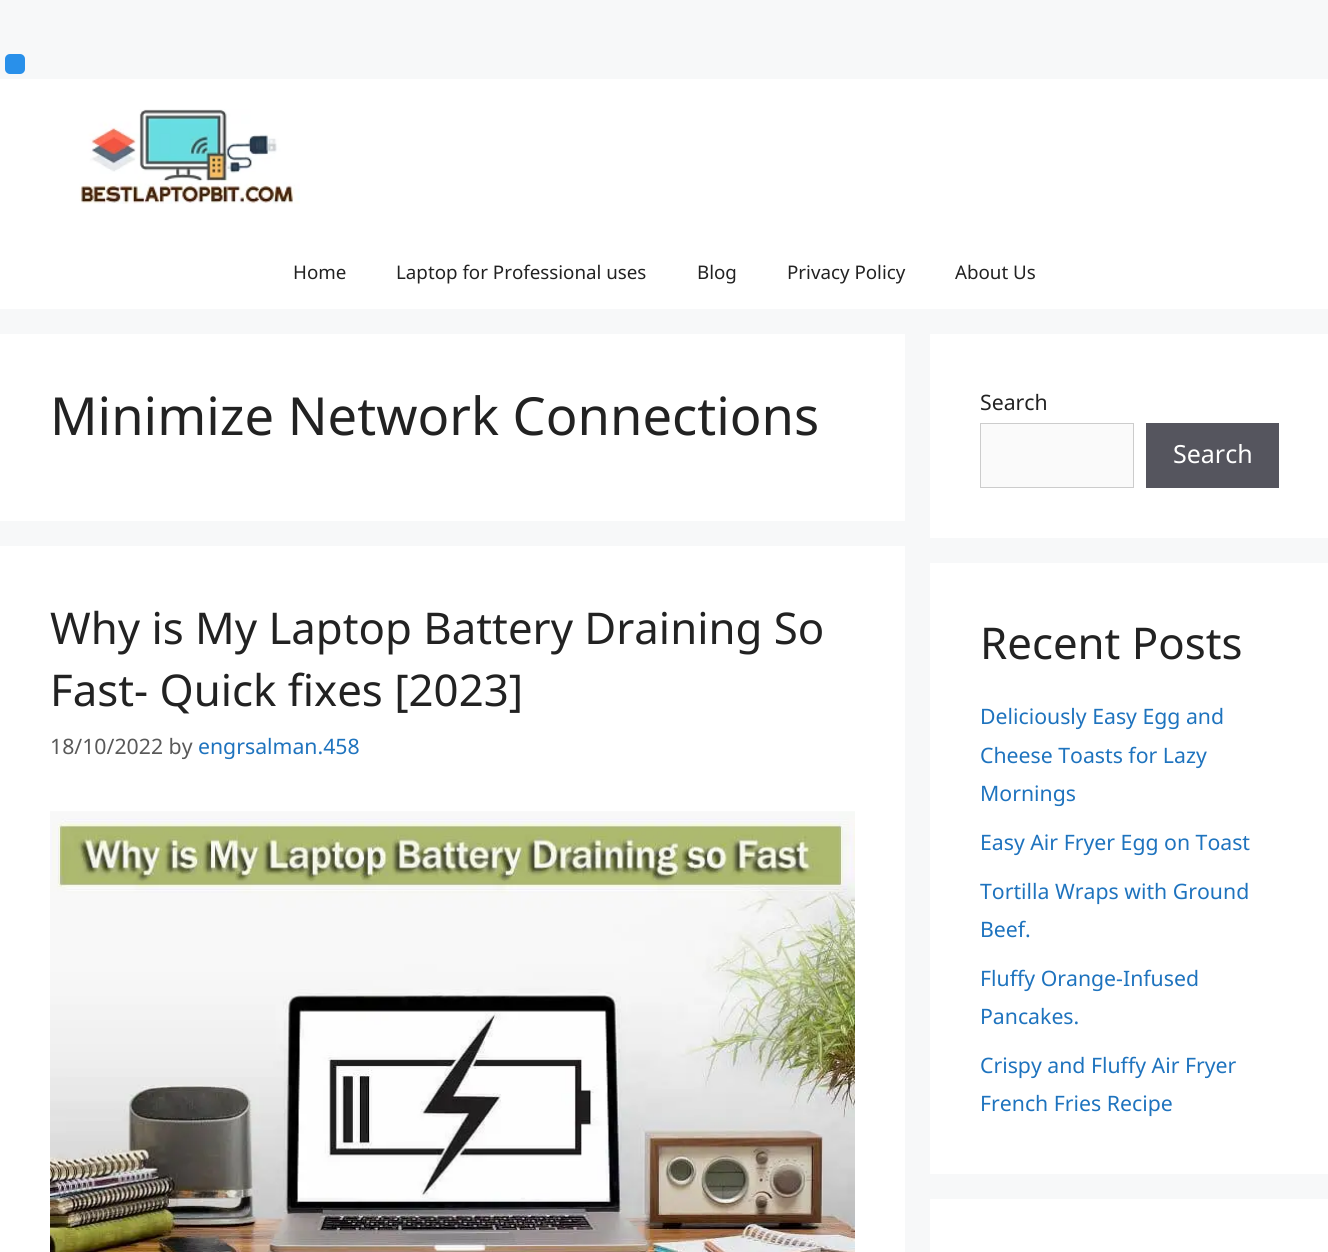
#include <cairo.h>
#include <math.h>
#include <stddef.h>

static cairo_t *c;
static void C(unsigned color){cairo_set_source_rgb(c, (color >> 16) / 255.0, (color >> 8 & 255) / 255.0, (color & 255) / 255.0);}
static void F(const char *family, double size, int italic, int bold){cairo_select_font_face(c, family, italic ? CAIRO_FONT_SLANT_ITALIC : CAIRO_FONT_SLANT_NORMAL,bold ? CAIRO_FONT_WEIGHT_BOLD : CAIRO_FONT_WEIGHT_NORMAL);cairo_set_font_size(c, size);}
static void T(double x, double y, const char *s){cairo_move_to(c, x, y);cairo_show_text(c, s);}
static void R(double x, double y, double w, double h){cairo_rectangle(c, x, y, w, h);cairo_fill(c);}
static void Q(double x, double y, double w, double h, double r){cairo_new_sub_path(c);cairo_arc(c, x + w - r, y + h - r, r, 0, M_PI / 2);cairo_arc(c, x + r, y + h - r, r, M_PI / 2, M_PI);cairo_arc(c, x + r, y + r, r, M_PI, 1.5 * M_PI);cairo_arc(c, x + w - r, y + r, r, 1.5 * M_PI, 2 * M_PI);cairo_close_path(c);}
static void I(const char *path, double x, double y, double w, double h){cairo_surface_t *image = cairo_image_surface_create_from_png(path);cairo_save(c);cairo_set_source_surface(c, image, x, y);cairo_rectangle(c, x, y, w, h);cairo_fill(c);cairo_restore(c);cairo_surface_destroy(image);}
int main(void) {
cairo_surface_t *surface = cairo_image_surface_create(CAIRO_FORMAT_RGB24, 1328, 1252);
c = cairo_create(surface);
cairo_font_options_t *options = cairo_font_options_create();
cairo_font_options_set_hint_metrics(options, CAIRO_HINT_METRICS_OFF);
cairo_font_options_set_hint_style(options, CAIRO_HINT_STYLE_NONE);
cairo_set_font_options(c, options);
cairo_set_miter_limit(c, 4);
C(0xf7f8f9);
cairo_paint(c);
C(0x2990ea);
Q(5,54,20,20,5);
cairo_fill(c);
C(0xffffff);
R(0,79,1328,230);
I("1.png",79,109,221,95);
F("Noto Sans",18.75,0,0);
C(0x222222);
T(293,279,"Home");
T(396,279,"Laptop for Professional uses");
T(697,279,"Blog");
T(787,279,"Privacy Policy");
T(955,279,"About Us");
C(0xffffff);
R(0,334,905,187);
F("Noto Sans",52.5,0,0);
C(0x222222);
T(50,435,"Minimize Network Connections");
C(0xffffff);
R(0,546,905,706);
F("Noto Sans",43.75,0,0);
C(0x222222);
T(50,644,"Why is My Laptop Battery Draining So");
T(50,706,"Fast- Quick fixes [2023]");
F("Noto Sans",21.25,0,0);
C(0x595959);
T(50,754,"18/10/2022 by");
C(0x1e73be);
T(198,754,"engrsalman.458");
I("2.png",50,811,805,441);
C(0xffffff);
R(930,334,398,204);
C(0x222222);
T(980,410,"Search");
C(0xfafafa);
cairo_rectangle(c,980.5,423.5,153,64);
cairo_fill_preserve(c);
C(0xcccccc);
cairo_set_line_width(c,1);
cairo_stroke(c);
C(0x55555e);
R(1146,423,133,65);
F("Noto Sans",25,0,0);
C(0xffffff);
T(1173,463,"Search");
R(930,563,398,611);
F("Noto Sans",43.75,0,0);
C(0x222222);
T(980,659,"Recent Posts");
F("Noto Sans",21.25,0,0);
C(0x1e73be);
T(980,724,"Deliciously Easy Egg and");
T(980,763,"Cheese Toasts for Lazy");
T(980,801,"Mornings");
T(980,850,"Easy Air Fryer Egg on Toast");
T(980,899,"Tortilla Wraps with Ground");
T(980,937,"Beef.");
T(980,986,"Fluffy Orange-Infused");
T(980,1024,"Pancakes.");
T(980,1073,"Crispy and Fluffy Air Fryer");
T(980,1111,"French Fries Recipe");
C(0xffffff);
R(930,1199,398,53);
cairo_surface_write_to_png(surface, "o.png");
cairo_font_options_destroy(options);
cairo_destroy(c);
cairo_surface_destroy(surface);
return 0;
}
